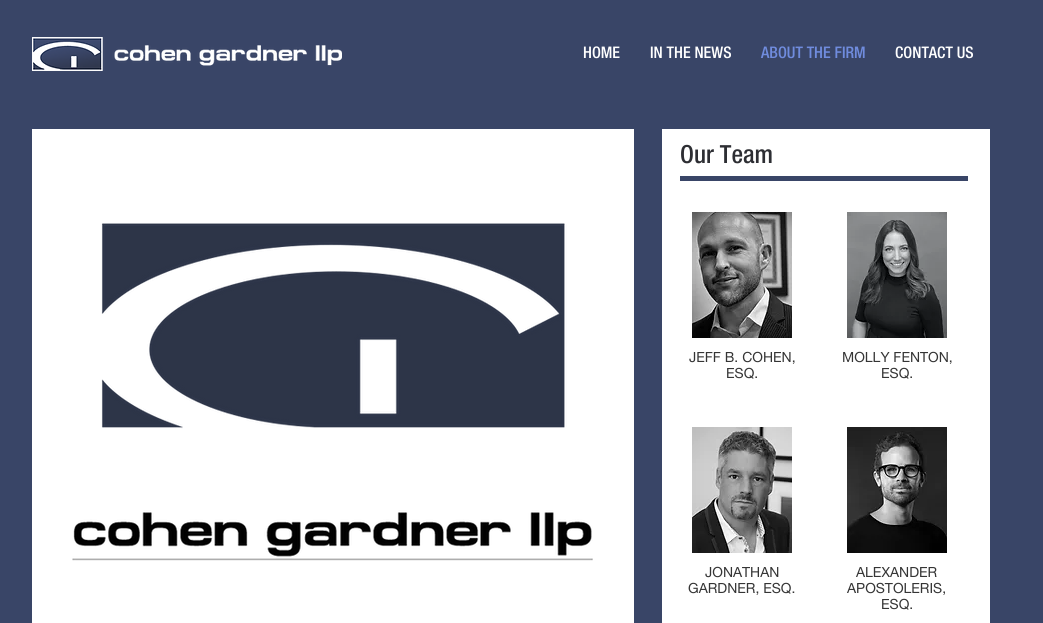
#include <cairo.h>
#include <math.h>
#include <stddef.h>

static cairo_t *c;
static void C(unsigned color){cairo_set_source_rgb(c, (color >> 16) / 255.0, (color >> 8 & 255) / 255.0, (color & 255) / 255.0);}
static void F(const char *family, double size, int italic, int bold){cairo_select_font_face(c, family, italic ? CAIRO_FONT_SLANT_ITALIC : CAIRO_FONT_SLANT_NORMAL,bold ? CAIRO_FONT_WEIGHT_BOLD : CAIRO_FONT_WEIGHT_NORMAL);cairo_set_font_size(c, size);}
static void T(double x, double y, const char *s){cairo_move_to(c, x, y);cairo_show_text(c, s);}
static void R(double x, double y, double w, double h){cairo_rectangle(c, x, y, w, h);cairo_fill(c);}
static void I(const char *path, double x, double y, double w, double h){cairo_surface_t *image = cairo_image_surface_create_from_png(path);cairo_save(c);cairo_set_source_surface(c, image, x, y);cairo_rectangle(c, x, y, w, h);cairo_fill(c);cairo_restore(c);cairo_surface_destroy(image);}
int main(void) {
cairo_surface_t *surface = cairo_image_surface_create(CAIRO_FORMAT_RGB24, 1043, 623);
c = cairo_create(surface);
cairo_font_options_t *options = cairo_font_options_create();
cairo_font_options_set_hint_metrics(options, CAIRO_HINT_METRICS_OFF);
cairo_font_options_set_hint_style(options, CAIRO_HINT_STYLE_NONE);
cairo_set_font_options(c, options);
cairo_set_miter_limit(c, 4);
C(0x394567);
cairo_paint(c);
I("1.png",32,37,310,34);
F("Helvetica Neue Medium",16,0,0);
C(0xffffff);
T(583,58,"HOME");
T(650,58,"IN THE NEWS");
C(0x708cde);
T(761,58,"ABOUT THE FIRM");
C(0xffffff);
T(895,58,"CONTACT US");
R(32,129,602,494);
I("2.png",72,223,521,338);
R(662,129,328,494);
F("Helvetica Neue Medium",25,0,0);
C(0x2d2e33);
T(680,163,"Our Team");
C(0x394567);
R(680,176,288,5);
I("3.png",692,212,100,126);
F("Helvetica Neue",14,0,0);
C(0x353535);
T(689,362,"JEFF B. COHEN,");
T(726,378,"ESQ.");
I("4.png",692,427,100,126);
T(705,577,"JONATHAN");
T(688,593,"GARDNER, ESQ.");
I("5.png",847,212,100,126);
T(842,362,"MOLLY FENTON,");
T(881,378,"ESQ.");
I("6.png",847,427,100,126);
T(856,577,"ALEXANDER");
T(847,593,"APOSTOLERIS,");
T(881,609,"ESQ.");
cairo_surface_write_to_png(surface, "o.png");
cairo_font_options_destroy(options);
cairo_destroy(c);
cairo_surface_destroy(surface);
return 0;
}
